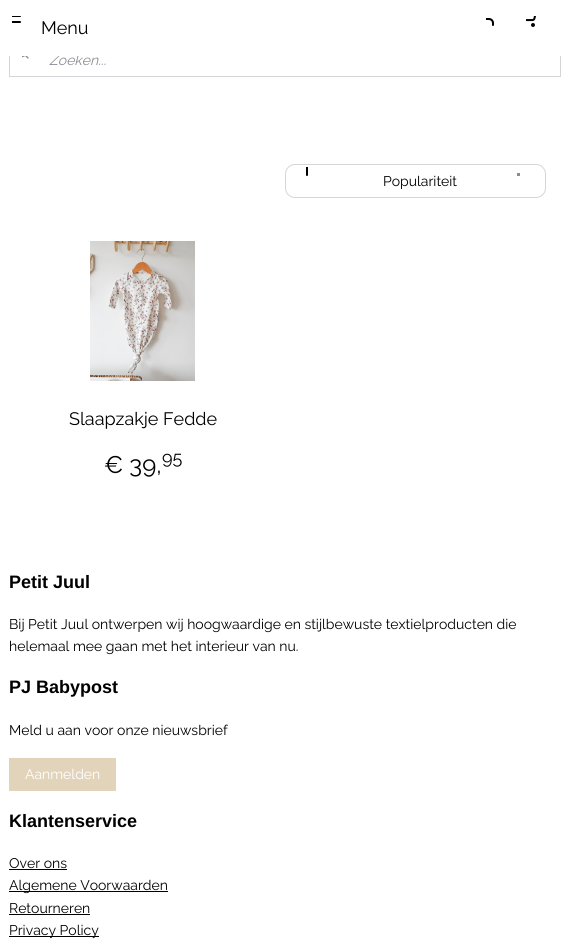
#include <cairo.h>
#include <math.h>
#include <stddef.h>

static cairo_t *c;
static void C(unsigned color){cairo_set_source_rgb(c, (color >> 16) / 255.0, (color >> 8 & 255) / 255.0, (color & 255) / 255.0);}
static void F(const char *family, double size, int italic, int bold){cairo_select_font_face(c, family, italic ? CAIRO_FONT_SLANT_ITALIC : CAIRO_FONT_SLANT_NORMAL,bold ? CAIRO_FONT_WEIGHT_BOLD : CAIRO_FONT_WEIGHT_NORMAL);cairo_set_font_size(c, size);}
static void T(double x, double y, const char *s){cairo_move_to(c, x, y);cairo_show_text(c, s);}
static void R(double x, double y, double w, double h){cairo_rectangle(c, x, y, w, h);cairo_fill(c);}
static void Q(double x, double y, double w, double h, double r){cairo_new_sub_path(c);cairo_arc(c, x + w - r, y + h - r, r, 0, M_PI / 2);cairo_arc(c, x + r, y + h - r, r, M_PI / 2, M_PI);cairo_arc(c, x + r, y + r, r, M_PI, 1.5 * M_PI);cairo_arc(c, x + w - r, y + r, r, 1.5 * M_PI, 2 * M_PI);cairo_close_path(c);}
static void I(const char *path, double x, double y, double w, double h){cairo_surface_t *image = cairo_image_surface_create_from_png(path);cairo_save(c);cairo_set_source_surface(c, image, x, y);cairo_rectangle(c, x, y, w, h);cairo_fill(c);cairo_restore(c);cairo_surface_destroy(image);}
int main(void) {
cairo_surface_t *surface = cairo_image_surface_create(CAIRO_FORMAT_RGB24, 570, 949);
c = cairo_create(surface);
cairo_font_options_t *options = cairo_font_options_create();
cairo_font_options_set_hint_metrics(options, CAIRO_HINT_METRICS_OFF);
cairo_font_options_set_hint_style(options, CAIRO_HINT_STYLE_NONE);
cairo_set_font_options(c, options);
cairo_set_miter_limit(c, 4);
C(0xffffff);
cairo_paint(c);
cairo_rectangle(c,9.5,43.5,551,33);
C(0xd3d5d9);
cairo_set_line_width(c,1);
cairo_stroke(c);
F("Raleway",14,1,0);
C(0x898c91);
T(49,65,"Zoeken...");
C(0xffffff);
R(9,43,552,13);
I("1.png",12,16,9,7);
F("Raleway",18,0,0);
C(0x000000);
T(41,34,"Menu");
I("2.png",486,18,8,8);
I("3.png",526,16,10,11);
I("4.png",22,56,7,3);
Q(285.5,164.5,260,33,9.5);
C(0xd6d6d6);
cairo_stroke(c);
I("5.png",306,167,2,9);
C(0x8c8c8c);
R(517,173,3,3);
F("Raleway",14,0,0);
C(0x000000);
T(383,186,"Populariteit");
I("6.png",90,241,105,140);
F("Raleway",18,0,0);
T(69,425,"Slaapzakje Fedde");
F("Raleway",24,0,0);
T(104,473,"€ 39,");
F("Raleway",18,0,0);
T(162,464,"95");
F("Liberation Sans",18,0,1);
T(9,588,"Petit Juul");
F("Raleway",14,0,0);
T(9,629,"Bij Petit Juul ontwerpen wij hoogwaardige en stijlbewuste textielproducten die");
T(9,651,"helemaal mee gaan met het interieur van nu.");
F("Liberation Sans",18,0,1);
T(9,693,"PJ Babypost");
F("Raleway",14,0,0);
T(9,735,"Meld u aan voor onze nieuwsbrief");
C(0xe2d4ba);
R(9,758,107,33);
C(0xffffff);
T(25,779,"Aanmelden");
F("Liberation Sans",18,0,1);
C(0x000000);
T(9,827,"Klantenservice");
F("Raleway",14,0,0);
T(9,868,"Over ons");
R(9,869,58,1);
R(9,891,159,1);
T(9,890,"Algemene Voorwaarden");
T(9,913,"Retourneren");
R(9,914,81,1);
R(9,936,90,1);
T(9,935,"Privacy Policy");
cairo_surface_write_to_png(surface, "o.png");
cairo_font_options_destroy(options);
cairo_destroy(c);
cairo_surface_destroy(surface);
return 0;
}
